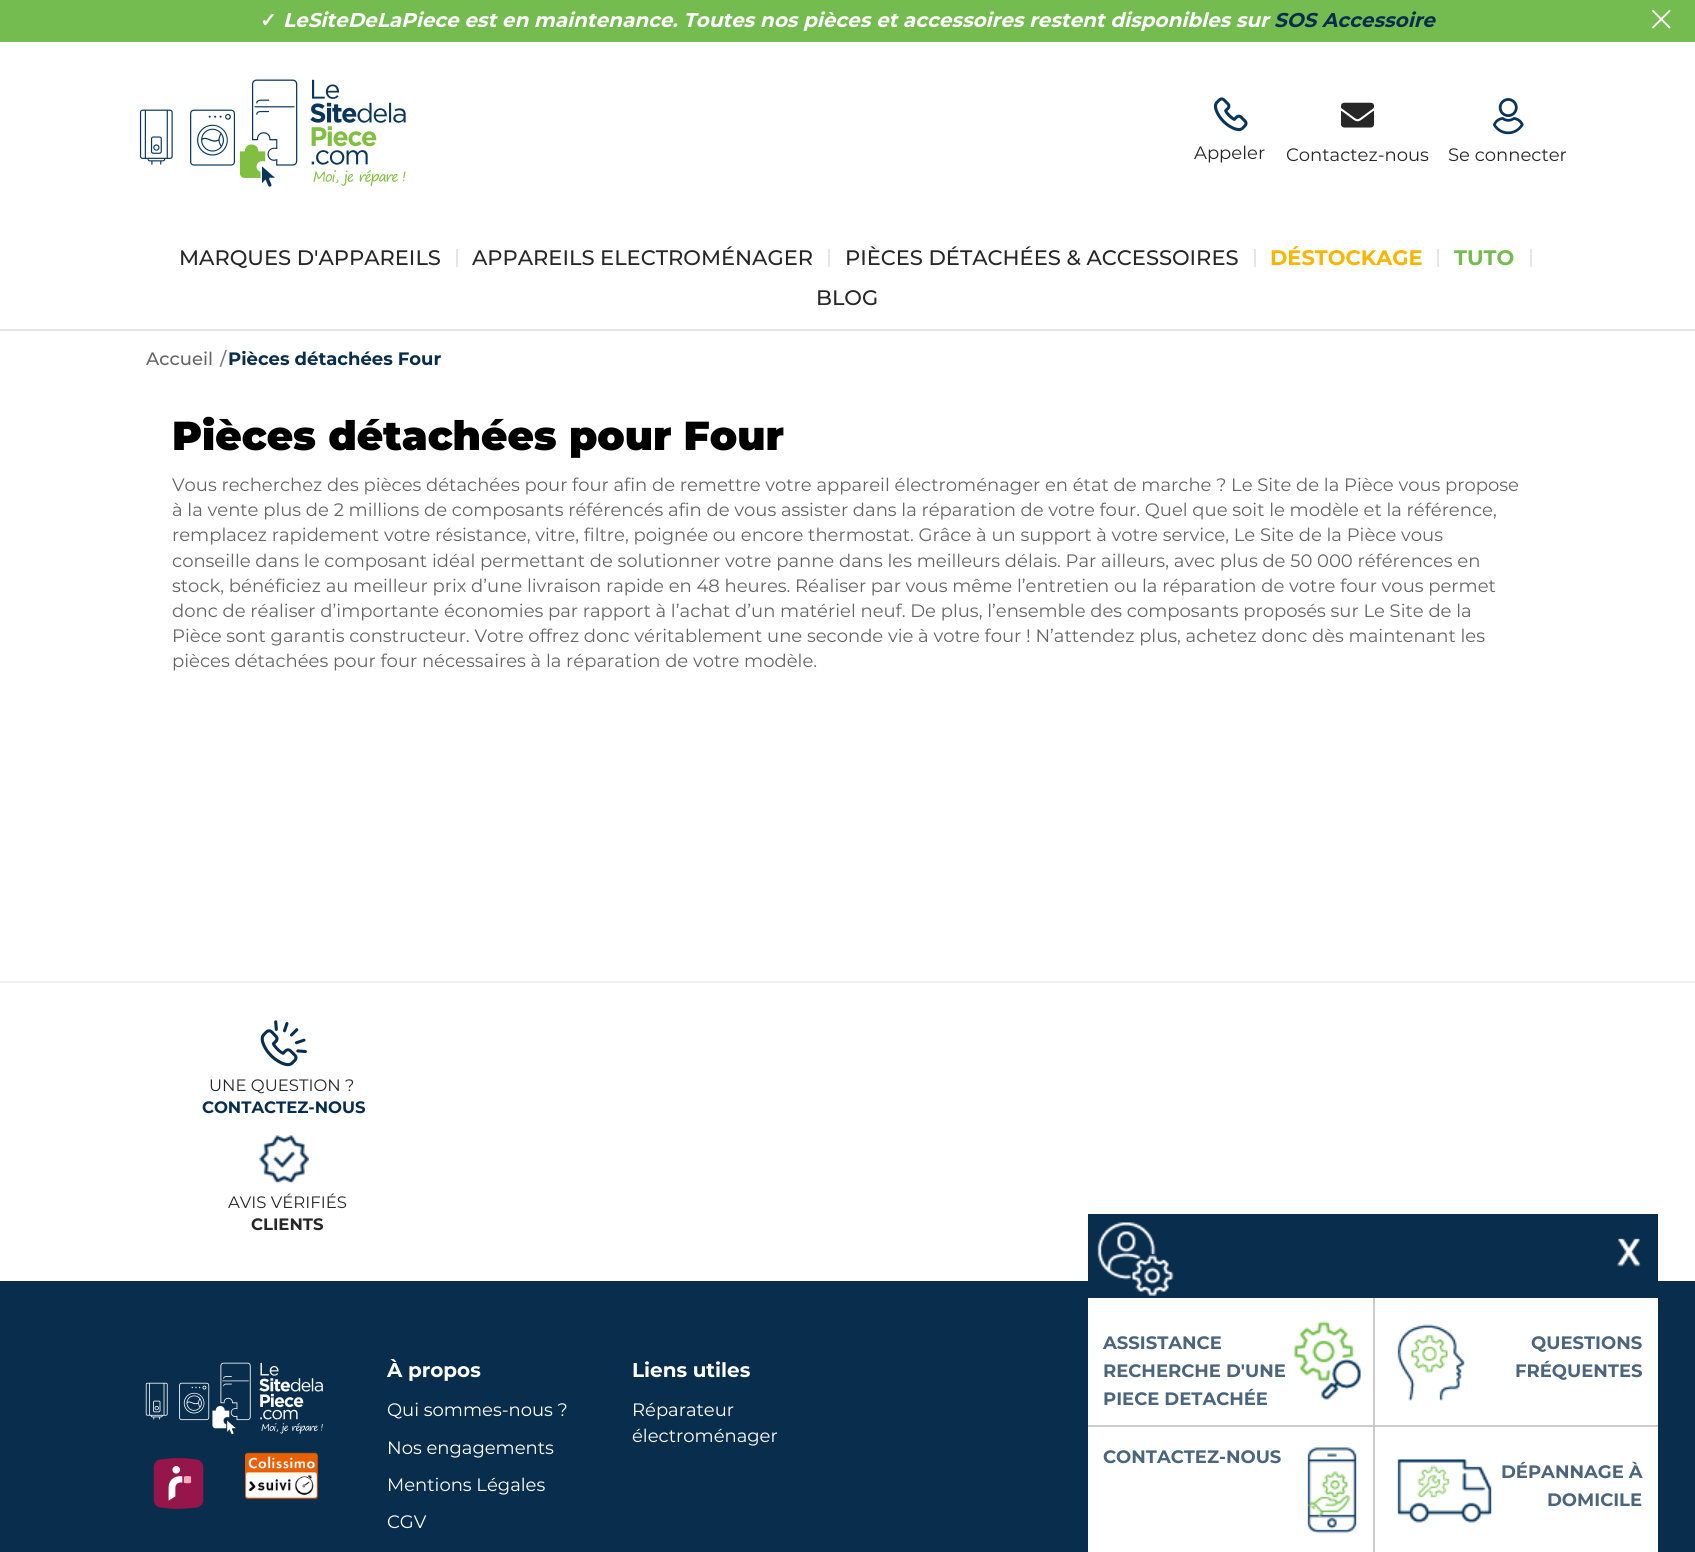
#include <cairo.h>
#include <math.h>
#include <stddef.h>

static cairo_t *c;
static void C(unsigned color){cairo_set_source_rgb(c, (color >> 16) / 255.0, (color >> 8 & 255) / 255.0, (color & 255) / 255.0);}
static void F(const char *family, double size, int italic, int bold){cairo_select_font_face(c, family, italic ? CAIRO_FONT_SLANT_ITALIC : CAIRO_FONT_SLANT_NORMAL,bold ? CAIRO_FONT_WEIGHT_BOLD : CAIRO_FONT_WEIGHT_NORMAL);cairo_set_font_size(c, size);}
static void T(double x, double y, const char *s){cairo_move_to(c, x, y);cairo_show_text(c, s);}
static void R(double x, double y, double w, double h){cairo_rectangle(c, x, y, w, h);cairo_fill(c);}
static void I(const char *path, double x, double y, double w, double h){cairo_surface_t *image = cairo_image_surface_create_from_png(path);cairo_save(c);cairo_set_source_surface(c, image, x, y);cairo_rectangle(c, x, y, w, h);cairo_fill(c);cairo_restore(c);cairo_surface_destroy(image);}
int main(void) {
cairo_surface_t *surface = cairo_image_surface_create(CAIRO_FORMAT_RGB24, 1695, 1552);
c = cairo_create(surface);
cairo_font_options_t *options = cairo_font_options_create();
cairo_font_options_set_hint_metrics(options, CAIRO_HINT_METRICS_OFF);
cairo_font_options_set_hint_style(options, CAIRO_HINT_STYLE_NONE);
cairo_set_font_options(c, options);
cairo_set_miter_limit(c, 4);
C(0xffffff);
cairo_paint(c);
C(0xe6e6e6);
R(0,329,1695,2);
C(0x74bc50);
R(0,0,1695,42);
F("DejaVu Sans",19.95,0,1);
C(0xffffff);
T(260,27,"✓");
F("Montserrat",19.95,1,1);
T(283,27,"LeSiteDeLaPiece est en maintenance. Toutes nos pièces et accessoires restent disponibles sur");
C(0x092d4d);
T(1274,27,"SOS Accessoire");
I("1.png",1652,10,19,19);
I("2.png",139,79,267,108);
I("3.png",1213,97,35,35);
F("Montserrat",18,0,0);
C(0x272727);
T(1194,159,"Appeler");
I("4.png",1341,102,33,26);
T(1286,161,"Contactez-nous");
I("5.png",1493,98,31,37);
T(1448,161,"Se connecter");
C(0xe6e6e6);
R(456,249,2,18);
F("Montserrat Medium",21,0,0);
C(0x272727);
T(179,265,"MARQUES D'APPAREILS");
C(0xe6e6e6);
R(828,249,2,18);
C(0x272727);
T(472,265,"APPAREILS ELECTROMÉNAGER");
C(0xe6e6e6);
R(1254,249,2,18);
C(0x272727);
T(845,265,"PIÈCES DÉTACHÉES & ACCESSOIRES");
C(0xe6e6e6);
R(1437,249,2,18);
F("Montserrat",21,0,1);
C(0xf9b501);
T(1270,265,"DÉSTOCKAGE");
C(0xe6e6e6);
R(1530,249,2,18);
C(0x74bc50);
T(1454,265,"TUTO");
F("Montserrat Medium",21,0,0);
C(0x272727);
T(816,305,"BLOG");
F("Montserrat Medium",18,0,0);
C(0x656565);
T(146,365,"Accueil");
C(0x777777);
T(220,365,"/");
F("Montserrat",18,0,1);
C(0x092d4d);
T(228,365,"Pièces détachées Four");
F("Montserrat Black",40.5,0,0);
C(0x000000);
T(172,450,"Pièces détachées pour Four");
F("Montserrat",18,0,0);
C(0x656565);
T(172,491,"Vous recherchez des pièces détachées pour four afin de remettre votre appareil électroménager en état de marche ? Le Site de la Pièce vous propose");
T(172,516,"à la vente plus de 2 millions de composants référencés afin de vous assister dans la réparation de votre four. Quel que soit le modèle et la référence,");
T(172,541,"remplacez rapidement votre résistance, vitre, filtre, poignée ou encore thermostat. Grâce à un support à votre service, Le Site de la Pièce vous");
T(172,567,"conseille dans le composant idéal permettant de solutionner votre panne dans les meilleurs délais. Par ailleurs, avec plus de 50 000 références en");
T(172,592,"stock, bénéficiez au meilleur prix d’une livraison rapide en 48 heures. Réaliser par vous même l’entretien ou la réparation de votre four vous permet");
T(172,617,"donc de réaliser d’importante économies par rapport à l’achat d’un matériel neuf. De plus, l’ensemble des composants proposés sur Le Site de la");
T(172,642,"Pièce sont garantis constructeur. Votre offrez donc véritablement une seconde vie à votre four ! N’attendez plus, achetez donc dès maintenant les");
T(172,667,"pièces détachées pour four nécessaires à la réparation de votre modèle.");
C(0xefefef);
R(0,981,1695,2);
I("6.png",260,1020,47,47);
F("Montserrat",16.5,0,0);
C(0x272727);
T(209,1091,"UNE QUESTION ?");
F("Montserrat",16.5,0,1);
C(0x092d4d);
T(202,1113,"CONTACTEZ-NOUS");
I("7.png",259,1135,50,48);
F("Montserrat",16.5,0,0);
C(0x272727);
T(228,1208,"AVIS VÉRIFIÉS");
F("Montserrat",16.5,0,1);
T(251,1230,"CLIENTS");
C(0x092d4d);
R(0,1281,1695,271);
I("8.png",145,1362,178,73);
I("9.png",153,1458,51,51);
I("10.png",245,1452,74,48);
F("Montserrat",19.95,0,1);
C(0xffffff);
T(387,1377,"À propos");
F("Montserrat",18,0,0);
T(387,1416,"Qui sommes-nous ?");
T(387,1454,"Nos engagements");
T(387,1491,"Mentions Légales");
T(387,1528,"CGV");
F("Montserrat",19.95,0,1);
T(632,1377,"Liens utiles");
F("Montserrat",18,0,0);
T(632,1416,"Réparateur");
T(632,1442,"électroménager");
R(1088,1298,570,254);
C(0x092d4d);
R(1088,1214,570,67);
I("11.png",1097,1222,77,74);
I("12.png",1616,1238,25,29);
I("13.png",1294,1321,67,79);
F("Montserrat",18,0,1);
C(0x4a657c);
T(1103,1349,"ASSISTANCE");
T(1103,1377,"RECHERCHE D'UNE");
T(1103,1405,"PIECE DETACHÉE");
I("14.png",1397,1324,68,78);
C(0xcccccc);
R(1373,1298,2,127);
C(0x4a657c);
T(1531,1349,"QUESTIONS");
T(1515,1377,"FRÉQUENTES");
I("15.png",1307,1447,50,87);
C(0xcccccc);
R(1088,1425,570,2);
C(0x4a657c);
T(1103,1463,"CONTACTEZ-NOUS");
I("16.png",1397,1459,95,64);
C(0xcccccc);
R(1373,1425,2,127);
C(0x4a657c);
T(1501,1478,"DÉPANNAGE À");
T(1547,1506,"DOMICILE");
cairo_surface_write_to_png(surface, "o.png");
cairo_font_options_destroy(options);
cairo_destroy(c);
cairo_surface_destroy(surface);
return 0;
}
